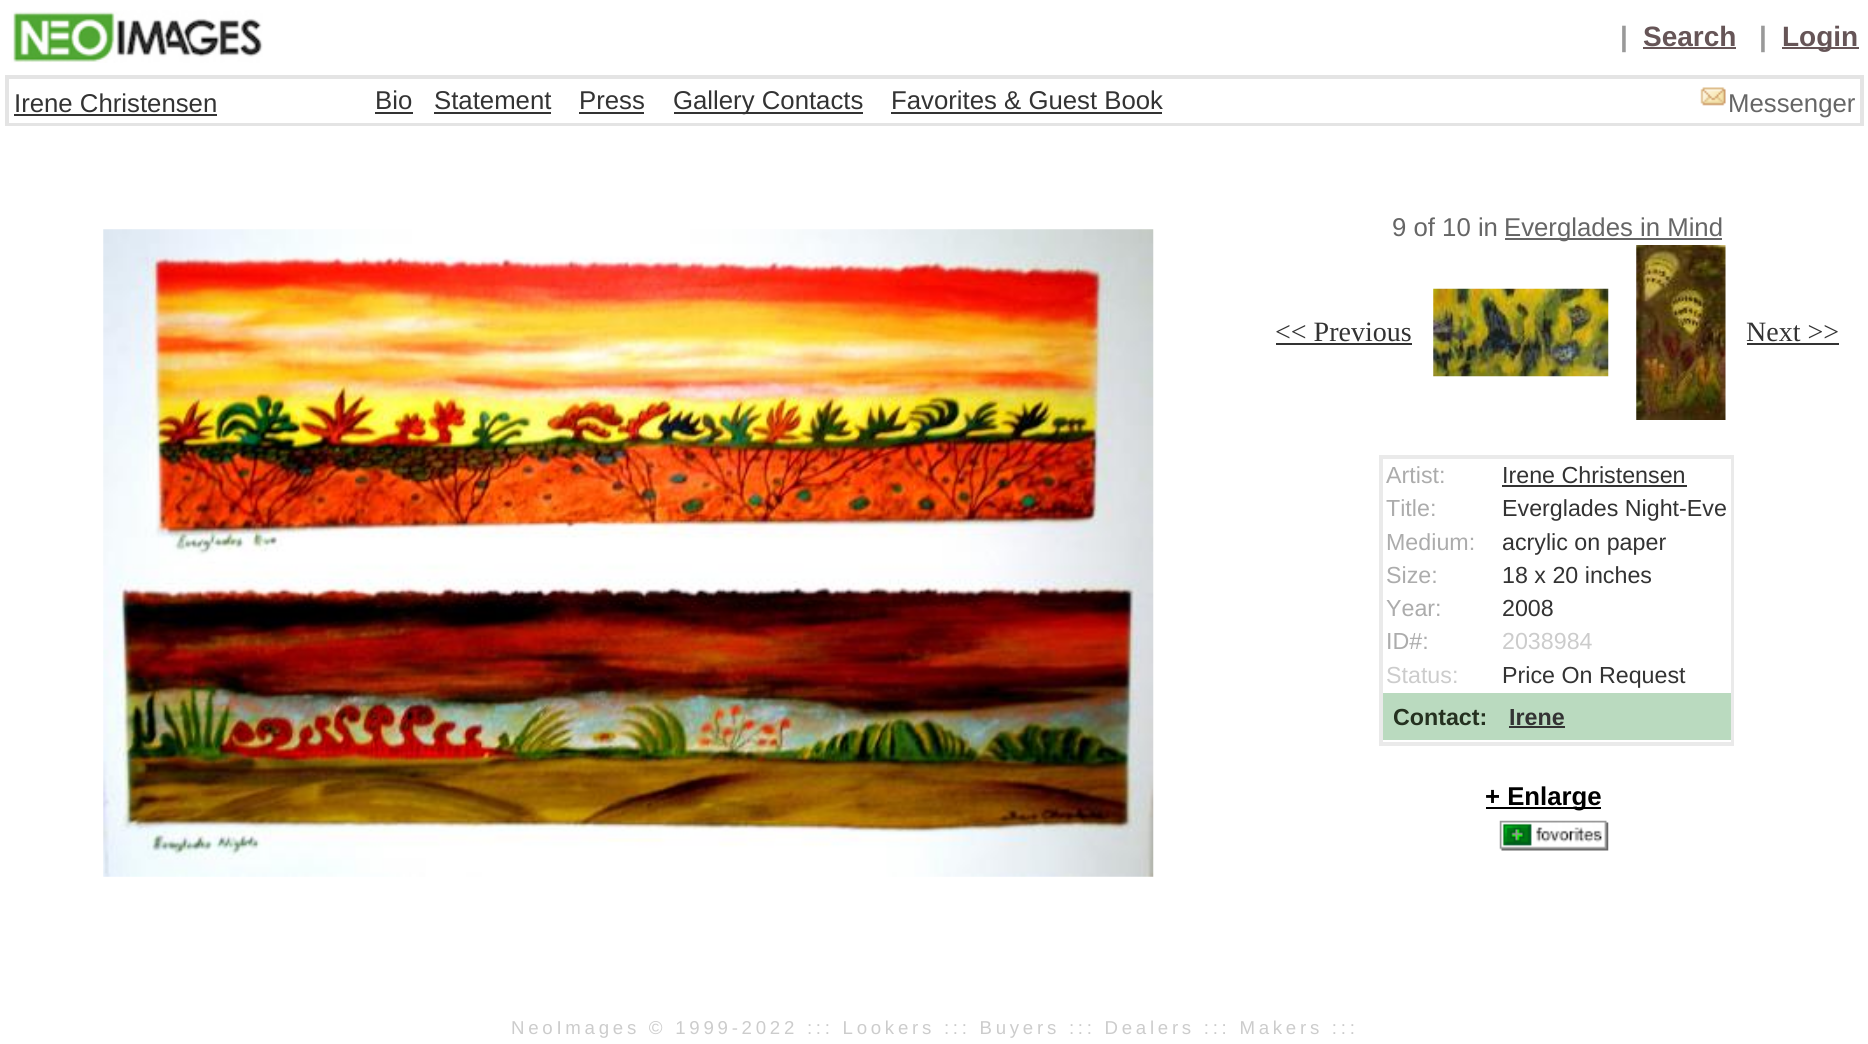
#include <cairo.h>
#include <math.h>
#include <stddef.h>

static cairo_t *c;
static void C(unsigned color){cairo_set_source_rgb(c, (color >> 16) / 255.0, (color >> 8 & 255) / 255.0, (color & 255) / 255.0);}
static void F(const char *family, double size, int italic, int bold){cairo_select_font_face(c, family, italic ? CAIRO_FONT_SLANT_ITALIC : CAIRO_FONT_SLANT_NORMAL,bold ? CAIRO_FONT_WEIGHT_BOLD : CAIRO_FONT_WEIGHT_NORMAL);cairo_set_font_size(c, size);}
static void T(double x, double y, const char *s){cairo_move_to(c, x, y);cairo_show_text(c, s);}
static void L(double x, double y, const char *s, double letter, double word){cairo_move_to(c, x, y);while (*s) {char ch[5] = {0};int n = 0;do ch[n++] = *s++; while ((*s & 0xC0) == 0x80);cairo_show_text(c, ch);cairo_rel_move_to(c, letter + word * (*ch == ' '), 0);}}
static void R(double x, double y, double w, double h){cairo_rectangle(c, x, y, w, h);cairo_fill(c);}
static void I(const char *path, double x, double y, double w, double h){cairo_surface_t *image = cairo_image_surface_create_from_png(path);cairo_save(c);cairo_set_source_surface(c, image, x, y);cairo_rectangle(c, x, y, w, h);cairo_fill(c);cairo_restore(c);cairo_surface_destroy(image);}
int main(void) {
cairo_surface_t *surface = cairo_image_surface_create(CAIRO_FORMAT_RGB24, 1868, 1044);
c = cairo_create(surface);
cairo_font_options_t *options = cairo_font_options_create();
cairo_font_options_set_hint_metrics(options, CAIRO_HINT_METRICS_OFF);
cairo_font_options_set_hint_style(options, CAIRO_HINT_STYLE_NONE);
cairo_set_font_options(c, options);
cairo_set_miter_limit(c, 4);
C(0xffffff);
cairo_paint(c);
I("1.png",11,10,252,53);
F("Liberation Sans",28,0,1);
C(0x999999);
T(1620,46,"|");
C(0x665557);
T(1643,46,"Search");
R(1643,47,93,2);
C(0x999999);
T(1759,46,"|");
C(0x665557);
R(1782,47,77,2);
T(1782,46,"Login");
cairo_rectangle(c,6,76,1857,49);
C(0xe4e4e4);
cairo_stroke(c);
cairo_rectangle(c,8,78,1853,45);
cairo_stroke(c);
C(0xffffff);
R(9,122,1851,1);
F("Liberation Sans",25.75,0,0);
C(0x333333);
T(14,112,"Irene Christensen");
R(14,114,203,2);
T(375,109,"Bio");
R(375,112,38,2);
T(434,109,"Statement");
R(434,112,117,2);
T(579,109,"Press");
R(579,112,65,2);
R(674,112,189,2);
T(673,109,"Gallery Contacts");
T(891,109,"Favorites & Guest Book");
R(891,112,271,2);
I("2.png",1700,87,26,19);
C(0x666666);
T(1728,112,"Messenger");
I("3.png",103,229,1051,648);
T(1392,236,"9 of 10 in");
R(1505,238,217,2);
T(1504,236,"Everglades in Mind");
F("Liberation Serif",28,0,0);
C(0x333333);
T(1275,341,"<< Previous");
R(1276,343,136,2);
I("4.png",1433,288,176,89);
I("5.png",1636,245,90,175);
T(1746,341,"Next >>");
R(1747,343,92,2);
cairo_rectangle(c,1380,456,353,289);
C(0xeaeaea);
cairo_stroke(c);
cairo_rectangle(c,1382,458,350,285);
cairo_stroke(c);
F("Liberation Sans",23.25,0,0);
C(0xacacac);
T(1386,483,"Artist:");
C(0x333333);
T(1502,483,"Irene Christensen");
R(1502,485,185,2);
C(0xacacac);
T(1386,516,"Title:");
C(0x333333);
T(1502,516,"Everglades Night-Eve");
C(0xacacac);
T(1386,550,"Medium:");
C(0x333333);
T(1502,550,"acrylic on paper");
C(0xacacac);
T(1386,583,"Size:");
C(0x333333);
T(1502,583,"18 x 20 inches");
C(0xacacac);
T(1386,616,"Year:");
C(0x333333);
T(1502,616,"2008");
C(0xacacac);
T(1386,649,"ID#:");
C(0xcccccc);
T(1502,649,"2038984");
T(1386,683,"Status:");
C(0x333333);
T(1502,683,"Price On Request");
C(0xbadabf);
R(1383,693,348,47);
F("Liberation Sans",23.25,0,1);
C(0x253120);
T(1393,725,"Contact:");
C(0x333333);
T(1509,725,"Irene");
R(1509,726,56,2);
C(0x000000);
R(1486,807,115,2);
F("Liberation Sans",25.75,0,1);
T(1485,805,"+ Enlarge");
I("6.png",1499,820,110,31);
F("Liberation Sans",18.65,0,0);
C(0xcccccc);
L(511,1034,"NeoImages © 1999-2022 ::: Lookers ::: Buyers ::: Dealers ::: Makers :::",3.73,0);
cairo_surface_write_to_png(surface, "o.png");
cairo_font_options_destroy(options);
cairo_destroy(c);
cairo_surface_destroy(surface);
return 0;
}
